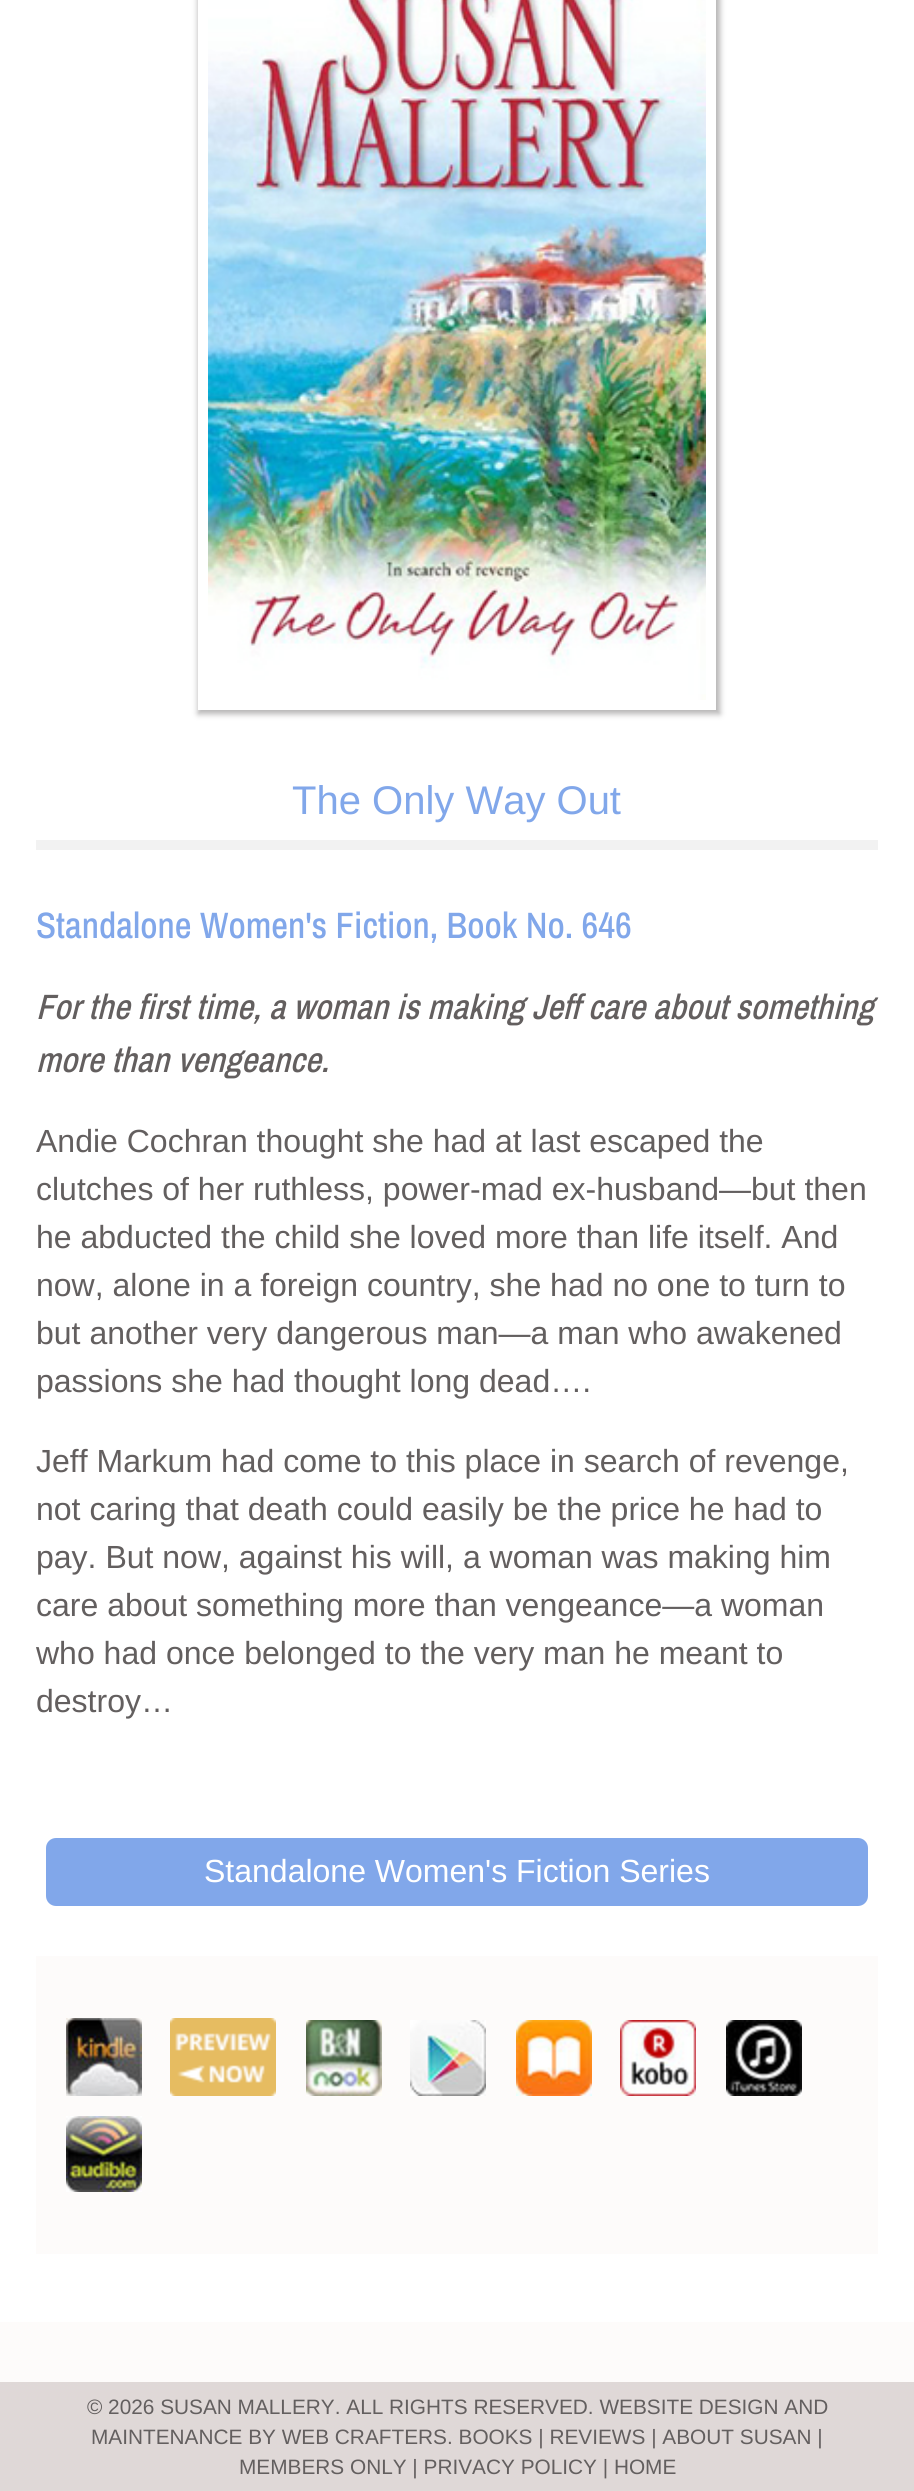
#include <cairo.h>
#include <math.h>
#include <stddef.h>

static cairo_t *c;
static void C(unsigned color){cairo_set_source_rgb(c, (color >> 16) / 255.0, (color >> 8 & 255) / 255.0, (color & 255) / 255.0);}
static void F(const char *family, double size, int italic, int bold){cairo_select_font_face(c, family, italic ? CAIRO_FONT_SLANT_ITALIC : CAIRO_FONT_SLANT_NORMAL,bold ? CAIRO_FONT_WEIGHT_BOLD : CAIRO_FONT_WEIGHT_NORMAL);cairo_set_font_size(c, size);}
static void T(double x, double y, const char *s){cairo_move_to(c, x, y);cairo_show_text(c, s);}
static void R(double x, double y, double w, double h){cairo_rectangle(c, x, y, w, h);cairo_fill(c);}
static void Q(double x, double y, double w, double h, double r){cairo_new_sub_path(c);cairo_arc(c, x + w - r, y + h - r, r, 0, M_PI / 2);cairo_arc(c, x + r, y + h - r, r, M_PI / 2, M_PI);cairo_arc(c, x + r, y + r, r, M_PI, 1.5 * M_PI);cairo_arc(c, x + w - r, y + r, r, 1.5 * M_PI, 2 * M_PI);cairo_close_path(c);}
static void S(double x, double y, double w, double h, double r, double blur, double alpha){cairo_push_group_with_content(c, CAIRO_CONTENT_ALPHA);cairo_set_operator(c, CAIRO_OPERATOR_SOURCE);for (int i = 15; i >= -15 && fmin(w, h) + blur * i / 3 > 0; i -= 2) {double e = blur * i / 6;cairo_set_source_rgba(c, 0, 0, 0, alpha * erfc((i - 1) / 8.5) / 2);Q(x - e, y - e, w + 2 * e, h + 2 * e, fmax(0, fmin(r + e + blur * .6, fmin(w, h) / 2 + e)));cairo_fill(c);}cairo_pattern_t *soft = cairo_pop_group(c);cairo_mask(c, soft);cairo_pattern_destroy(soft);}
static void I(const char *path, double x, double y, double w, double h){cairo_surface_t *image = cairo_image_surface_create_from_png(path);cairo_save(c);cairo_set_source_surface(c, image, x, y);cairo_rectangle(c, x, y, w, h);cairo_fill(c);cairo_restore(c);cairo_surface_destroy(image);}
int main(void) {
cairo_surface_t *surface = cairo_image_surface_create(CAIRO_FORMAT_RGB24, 914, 2491);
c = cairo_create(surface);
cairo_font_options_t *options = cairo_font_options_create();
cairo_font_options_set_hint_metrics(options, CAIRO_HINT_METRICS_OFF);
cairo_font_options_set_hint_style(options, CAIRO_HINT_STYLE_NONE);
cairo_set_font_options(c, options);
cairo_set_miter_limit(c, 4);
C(0xffffff);
cairo_paint(c);
cairo_save(c);
cairo_set_fill_rule(c,CAIRO_FILL_RULE_EVEN_ODD);
cairo_new_path(c);
cairo_move_to(c,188,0);
cairo_line_to(c,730,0);
cairo_line_to(c,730,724);
cairo_line_to(c,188,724);
cairo_close_path(c);
cairo_move_to(c,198,-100);
cairo_line_to(c,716,-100);
cairo_line_to(c,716,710);
cairo_line_to(c,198,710);
cairo_close_path(c);
cairo_clip(c);
C(0xb5b4b4);
S(198,-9,522,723,0,3,1);
cairo_restore(c);
I("1.png",208,0,498,700);
F("Arimo",40,0,0);
C(0x81a7ea);
T(292,814,"The Only Way Out");
C(0xf2f2f2);
R(36,840,842,10);
F("Archivo Narrow Medium",36.75,0,0);
C(0x81a7ea);
T(36,938,"Standalone Women's Fiction, Book No. 646");
F("Archivo Narrow Medium",35.2,1,0);
C(0x635f5f);
T(36,1019,"For the first time, a woman is making Jeff care about something");
T(36,1072,"more than vengeance.");
F("Arimo",32,0,0);
T(36,1152,"Andie Cochran thought she had at last escaped the");
T(36,1200,"clutches of her ruthless, power-mad ex-husband—but then");
T(36,1248,"he abducted the child she loved more than life itself. And");
T(36,1296,"now, alone in a foreign country, she had no one to turn to");
T(36,1344,"but another very dangerous man—a man who awakened");
T(36,1392,"passions she had thought long dead….");
T(36,1472,"Jeff Markum had come to this place in search of revenge,");
T(36,1520,"not caring that death could easily be the price he had to");
T(36,1568,"pay. But now, against his will, a woman was making him");
T(36,1616,"care about something more than vengeance—a woman");
T(36,1664,"who had once belonged to the very man he meant to");
T(36,1712,"destroy…");
C(0x81a7ea);
Q(46,1838,822,68,10);
cairo_fill(c);
C(0xffffff);
T(204,1882,"Standalone Women's Fiction Series");
C(0xfdfbfa);
R(36,1956,842,298);
I("2.png",66,2018,76,78);
I("3.png",170,2018,106,78);
I("4.png",306,2020,76,76);
I("5.png",410,2020,76,76);
I("6.png",516,2020,76,76);
I("7.png",620,2020,76,76);
I("8.png",726,2020,76,76);
I("9.png",66,2116,76,76);
R(0,2322,914,60);
C(0xdfd8d7);
R(0,2382,914,109);
F("Arimo",20.8,0,0);
C(0x635f5f);
T(87,2414,"© 2026 SUSAN MALLERY. ALL RIGHTS RESERVED. WEBSITE DESIGN AND");
T(91,2444,"MAINTENANCE BY WEB CRAFTERS. BOOKS | REVIEWS | ABOUT SUSAN |");
T(239,2474,"MEMBERS ONLY | PRIVACY POLICY | HOME");
cairo_surface_write_to_png(surface, "o.png");
cairo_font_options_destroy(options);
cairo_destroy(c);
cairo_surface_destroy(surface);
return 0;
}
